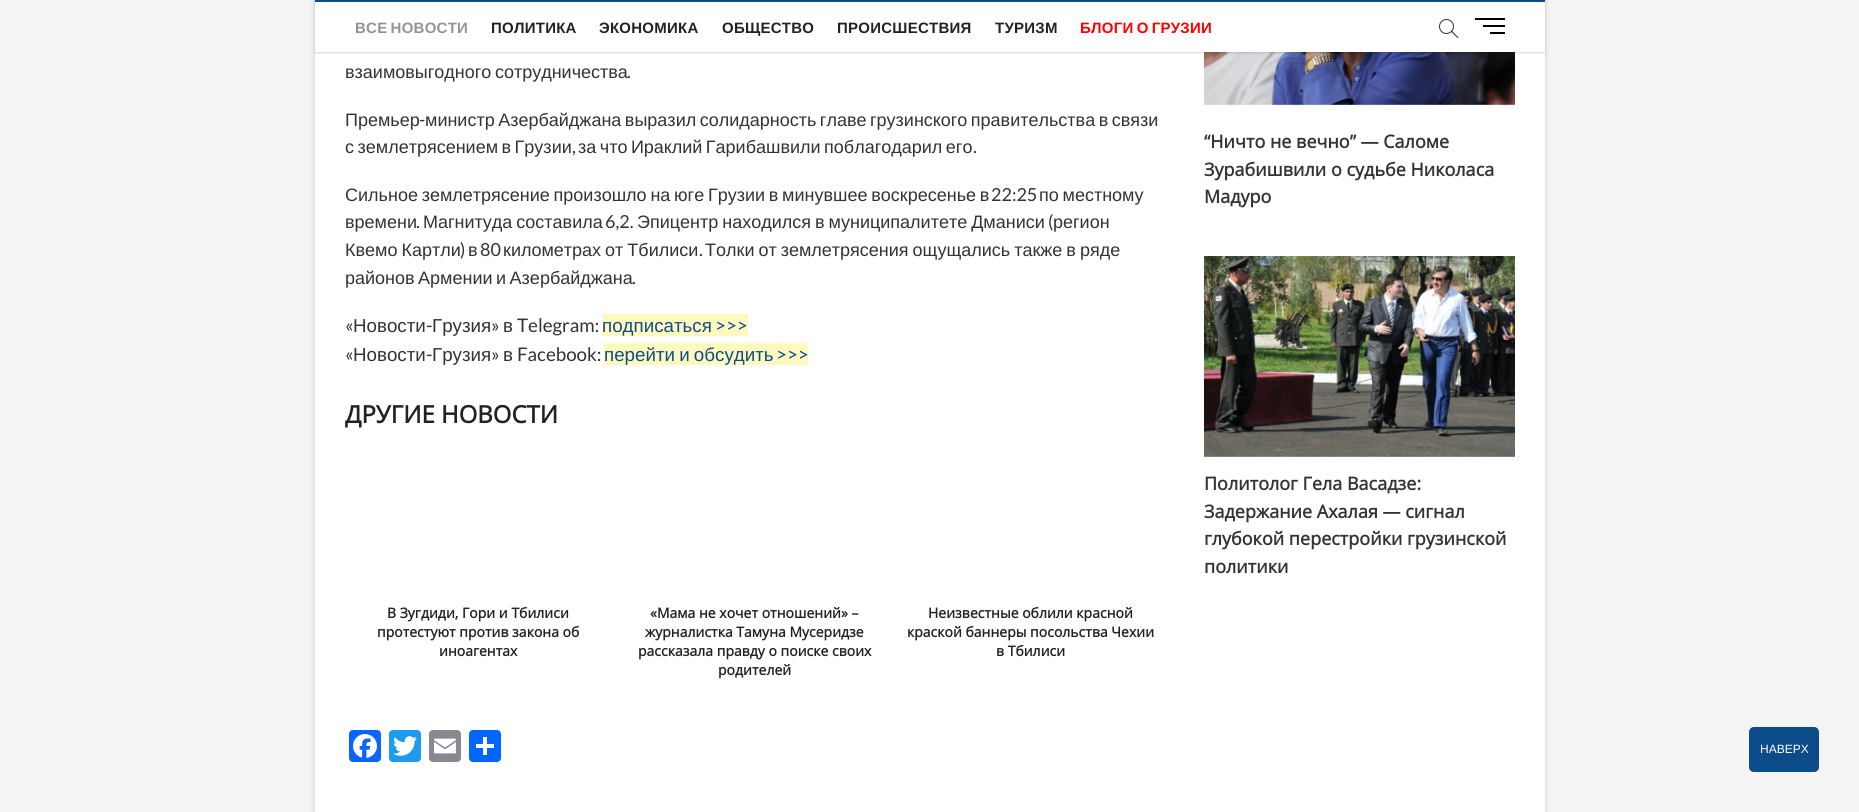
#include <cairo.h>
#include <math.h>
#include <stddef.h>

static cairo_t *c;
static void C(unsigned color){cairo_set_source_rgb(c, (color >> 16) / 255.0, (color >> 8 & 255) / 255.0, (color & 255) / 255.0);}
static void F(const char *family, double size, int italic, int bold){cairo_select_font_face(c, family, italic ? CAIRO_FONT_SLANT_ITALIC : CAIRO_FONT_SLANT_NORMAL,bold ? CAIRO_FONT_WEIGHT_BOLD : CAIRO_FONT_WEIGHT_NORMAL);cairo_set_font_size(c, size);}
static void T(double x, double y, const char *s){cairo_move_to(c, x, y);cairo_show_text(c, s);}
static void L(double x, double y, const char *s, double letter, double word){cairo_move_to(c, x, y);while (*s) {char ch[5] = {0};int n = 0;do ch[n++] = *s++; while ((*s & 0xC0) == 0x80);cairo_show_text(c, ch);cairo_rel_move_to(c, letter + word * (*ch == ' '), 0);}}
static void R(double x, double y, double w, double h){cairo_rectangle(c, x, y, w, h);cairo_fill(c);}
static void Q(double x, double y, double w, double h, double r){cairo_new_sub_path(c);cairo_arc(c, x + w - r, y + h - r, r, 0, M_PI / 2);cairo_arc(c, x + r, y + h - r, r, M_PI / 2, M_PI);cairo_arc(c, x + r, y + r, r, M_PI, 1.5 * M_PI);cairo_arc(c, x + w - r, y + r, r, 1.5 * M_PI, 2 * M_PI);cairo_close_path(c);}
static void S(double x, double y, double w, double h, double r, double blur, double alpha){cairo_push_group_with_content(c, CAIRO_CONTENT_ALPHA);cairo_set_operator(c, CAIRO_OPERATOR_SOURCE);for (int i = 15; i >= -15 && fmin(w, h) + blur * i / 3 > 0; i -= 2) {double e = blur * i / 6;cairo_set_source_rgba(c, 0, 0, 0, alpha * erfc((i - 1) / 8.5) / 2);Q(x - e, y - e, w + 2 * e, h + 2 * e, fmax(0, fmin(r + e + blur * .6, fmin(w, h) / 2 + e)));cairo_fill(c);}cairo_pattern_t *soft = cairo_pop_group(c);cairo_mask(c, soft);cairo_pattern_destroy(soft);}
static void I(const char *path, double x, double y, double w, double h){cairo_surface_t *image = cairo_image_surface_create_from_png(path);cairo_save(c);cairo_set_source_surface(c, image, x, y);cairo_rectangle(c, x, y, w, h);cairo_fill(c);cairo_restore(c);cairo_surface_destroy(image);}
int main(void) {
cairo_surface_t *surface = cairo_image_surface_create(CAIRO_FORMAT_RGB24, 1859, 812);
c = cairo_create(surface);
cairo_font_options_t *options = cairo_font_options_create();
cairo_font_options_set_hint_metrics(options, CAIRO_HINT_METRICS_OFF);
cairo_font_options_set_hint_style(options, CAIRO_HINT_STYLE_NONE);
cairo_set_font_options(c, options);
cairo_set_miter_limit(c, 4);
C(0xf4f4f4);
cairo_paint(c);
C(0x000000);
S(315,-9,1230,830,0,3,.15);
C(0xffffff);
R(315,52,1230,760);
I("4.png",1204,52,311,53);
C(0x000000);
S(315,1,1230,52,0,1,.15);
C(0xffffff);
R(315,2,1230,50);
C(0x0c4c8a);
R(315,0,1230,2);
F("Liberation Sans",15,0,1);
C(0x949494);
L(355,33,"ВСЕ НОВОСТИ",.25,-1.25);
C(0x222222);
L(491,33,"ПОЛИТИКА",.25,0);
L(599,33,"ЭКОНОМИКА",.25,0);
L(722,33,"ОБЩЕСТВО",.25,0);
L(837,33,"ПРОИСШЕСТВИЯ",.25,0);
L(995,33,"ТУРИЗМ",.25,0);
C(0xff0000);
L(1080,33,"БЛОГИ О ГРУЗИИ",.25,-1.25);
cairo_new_path(c);
cairo_arc(c,1446.5,26.5,7,0,2 * M_PI);
C(0x333333);
cairo_set_line_width(c,1);
cairo_stroke(c);
cairo_new_path(c);
cairo_move_to(c,1450.5,31);
cairo_line_to(c,1451.5,30.5);
cairo_line_to(c,1458.5,37.5);
cairo_line_to(c,1457.5,38);
cairo_close_path(c);
cairo_fill(c);
C(0x000000);
R(1483,25,22,2);
R(1475,18,30,2);
R(1490,32,15,2);
F("Liberation Sans",18,0,0);
C(0x333333);
L(345,78,"взаимовыгодного сотрудничества",0,-1.5);
F("Lato",18,0,0);
T(627,78,".");
F("Liberation Sans",18,0,0);
T(345,126,"Премьер");
F("Lato",18,0,0);
T(419,126,"-");
F("Liberation Sans",18,0,0);
L(425,126,"министр Азербайджана выразил солидарность главе грузинского правительства в связи",0,-1.5);
L(345,153,"с землетрясением в Грузии",0,-1.5);
F("Lato",18,0,0);
T(572,153,",");
F("Liberation Sans",18,0,0);
L(578,153,"за что Ираклий Гарибашвили поблагодарил его",0,-1.5);
F("Lato",18,0,0);
T(973,153,".");
F("Liberation Sans",18,0,0);
L(345,201,"Сильное землетрясение произошло на юге Грузии в минувшее воскресенье в",0,-1.25);
F("Lato",18,0,0);
T(991,201,"22:25");
F("Liberation Sans",18,0,0);
L(1039,201,"по местному",0,-1.25);
T(345,228,"времени");
F("Lato",18,0,0);
T(416,228,".");
F("Liberation Sans",18,0,0);
L(423,228,"Магнитуда составила",0,-1);
F("Lato",18,0,0);
T(605,228,"6,2.");
F("Liberation Sans",18,0,0);
L(637,228,"Эпицентр находился в муниципалитете Дманиси",0,-1);
F("Lato",18,0,0);
T(1048,228,"(");
F("Liberation Sans",18,0,0);
T(1053,228,"регион");
L(345,256,"Квемо Картли",0,-1);
F("Lato",18,0,0);
T(460,256,")");
F("Liberation Sans",18,0,0);
T(468,256,"в");
F("Lato",18,0,0);
T(480,256,"80");
F("Liberation Sans",18,0,0);
L(503,256,"километрах от Тбилиси",0,-1);
F("Lato",18,0,0);
T(699,256,".");
F("Liberation Sans",18,0,0);
L(705,256,"Толки от землетрясения ощущались также в ряде",0,-1);
L(345,284,"районов Армении и Азербайджана",0,-1.5);
F("Lato",18,0,0);
T(632,284,".");
F("Lato",18.75,0,0);
T(345,332,"«");
F("Liberation Sans",18.75,0,0);
T(353,332,"Новости");
F("Lato",18.75,0,0);
T(426,332,"-");
F("Liberation Sans",18.75,0,0);
T(432,332,"Грузия");
F("Lato",18.75,0,0);
T(491,332,"»");
F("Liberation Sans",18.75,0,0);
T(503,332,"в");
F("Lato",18.75,0,0);
T(517,332,"Telegram:");
C(0xfff9c0);
R(602,314,146,22);
F("Liberation Sans",18.75,0,0);
C(0x0c4c8a);
T(602,332,"подписаться");
F("Lato",18.75,0,0);
T(715,332,">>>");
C(0x333333);
T(345,361,"«");
F("Liberation Sans",18.75,0,0);
T(353,361,"Новости");
F("Lato",18.75,0,0);
T(426,361,"-");
F("Liberation Sans",18.75,0,0);
T(432,361,"Грузия");
F("Lato",18.75,0,0);
T(491,361,"»");
F("Liberation Sans",18.75,0,0);
T(503,361,"в");
F("Lato",18.75,0,0);
T(517,361,"Facebook:");
C(0xfff9c0);
R(604,343,204,22);
F("Liberation Sans",18.75,0,0);
C(0x0c4c8a);
L(604,361,"перейти и обсудить",0,-1);
F("Lato",18.75,0,0);
T(776,361,">>>");
F("Open Sans",24,0,1);
C(0x222222);
T(345,423,"ДРУГИЕ НОВОСТИ");
F("Open Sans",14,0,1);
T(387,618,"В Зугдиди, Гори и Тбилиси");
T(377,637,"протестуют против закона об");
T(439,656,"иноагентах");
T(650,618,"«Мама не хочет отношений» –");
T(645,637,"журналистка Тамуна Мусеридзе");
T(638,656,"рассказала правду о поиске своих");
T(718,675,"родителей");
T(928,618,"Неизвестные облили красной");
T(907,637,"краской баннеры посольства Чехии");
T(996,656,"в Тбилиси");
C(0x0866ff);
Q(349,730,32,32,4);
cairo_fill(c);
I("1.png",353,734,24,24);
C(0x1d9bf0);
Q(389,730,32,32,4);
cairo_fill(c);
I("2.png",393,736,24,20);
C(0x888990);
Q(429,730,32,32,4);
cairo_fill(c);
I("3.png",434,738,22,16);
C(0x0166ff);
Q(469,730,32,32,4);
cairo_fill(c);
C(0xffffff);
R(483,737,4,18);
R(476,744,18,4);
F("Open Sans",18,0,1);
C(0x333333);
T(1204,148,"“Ничто не вечно” — Саломе");
T(1204,176,"Зурабишвили о судьбе Николаса");
T(1204,203,"Мадуро");
I("5.png",1204,256,311,201);
T(1204,490,"Политолог Гела Васадзе:");
T(1204,518,"Задержание Ахалая — сигнал");
T(1204,545,"глубокой перестройки грузинской");
T(1204,573,"политики");
cairo_save(c);
cairo_rectangle(c,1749,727,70,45);
cairo_clip(c);
C(0x000000);
S(1749,729,70,45,5,1.5,.08);
cairo_restore(c);
C(0x0c4c8a);
Q(1749,727,70,45,5);
cairo_fill(c);
F("Liberation Sans",12,0,0);
C(0xffffff);
T(1760,753,"НАВЕРХ");
cairo_surface_write_to_png(surface, "o.png");
cairo_font_options_destroy(options);
cairo_destroy(c);
cairo_surface_destroy(surface);
return 0;
}
